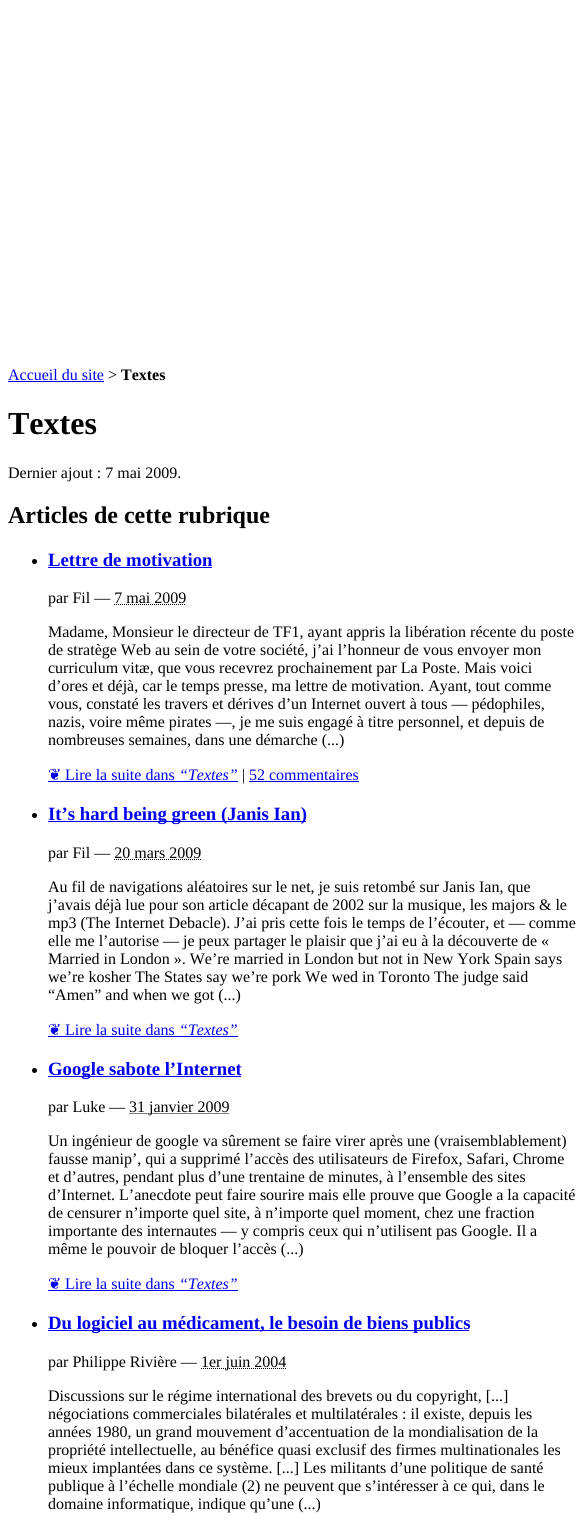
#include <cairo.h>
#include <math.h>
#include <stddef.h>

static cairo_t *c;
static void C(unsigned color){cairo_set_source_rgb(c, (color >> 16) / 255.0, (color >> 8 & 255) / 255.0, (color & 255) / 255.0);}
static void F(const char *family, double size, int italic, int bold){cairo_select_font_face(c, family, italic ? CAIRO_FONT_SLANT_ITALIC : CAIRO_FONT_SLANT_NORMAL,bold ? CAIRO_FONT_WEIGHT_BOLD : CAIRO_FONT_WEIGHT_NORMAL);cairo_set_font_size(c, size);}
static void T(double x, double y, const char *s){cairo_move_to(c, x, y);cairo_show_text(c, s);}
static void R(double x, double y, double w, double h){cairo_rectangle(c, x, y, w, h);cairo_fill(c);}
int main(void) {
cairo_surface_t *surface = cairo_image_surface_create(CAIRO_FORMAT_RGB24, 584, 1529);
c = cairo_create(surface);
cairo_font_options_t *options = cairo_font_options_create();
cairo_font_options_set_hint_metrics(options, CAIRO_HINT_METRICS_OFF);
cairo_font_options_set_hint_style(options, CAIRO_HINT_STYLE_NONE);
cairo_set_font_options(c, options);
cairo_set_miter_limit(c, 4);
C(0xffffff);
cairo_paint(c);
F("Liberation Serif",16,0,0);
C(0x0000ee);
T(8,380,"Accueil du site");
R(8,381,96,1);
C(0x000000);
T(108,380,">");
F("Liberation Serif",16,0,1);
T(121,380,"Textes");
F("Liberation Serif",32,0,1);
T(8,434,"Textes");
F("Liberation Serif",16,0,0);
T(8,478,"Dernier ajout : 7 mai 2009.");
F("Liberation Serif",24,0,1);
T(8,523,"Articles de cette rubrique");
cairo_new_path(c);
cairo_arc(c,34.5,561.5,2.5,0,2 * M_PI);
cairo_fill(c);
F("Liberation Serif",18.75,0,1);
C(0x0000ee);
T(48,566,"Lettre de motivation");
R(48,567,164,1);
F("Liberation Serif",16,0,0);
C(0x000000);
T(48,603,"par Fil — 7 mai 2009");
cairo_new_path(c);
cairo_move_to(c,114,604.5);
cairo_line_to(c,186,604.5);
cairo_set_line_width(c,1);
cairo_set_dash(c,(double[]){1,1},2,0);
cairo_stroke(c);
T(48,637,"Madame, Monsieur le directeur de TF1, ayant appris la libération récente du poste");
T(48,655,"de stratège Web au sein de votre société, j’ai l’honneur de vous envoyer mon");
T(48,673,"curriculum vitæ, que vous recevrez prochainement par La Poste. Mais voici");
T(48,691,"d’ores et déjà, car le temps presse, ma lettre de motivation. Ayant, tout comme");
T(48,709,"vous, constaté les travers et dérives d’un Internet ouvert à tous — pédophiles,");
T(48,727,"nazis, voire même pirates —, je me suis engagé à titre personnel, et depuis de");
T(48,745,"nombreuses semaines, dans une démarche (...)");
F("DejaVu Sans",16,0,0);
C(0x0000ee);
T(48,780,"❦");
F("Liberation Serif",16,0,0);
T(65,780,"Lire la suite dans");
F("Liberation Serif",16,1,0);
T(179,780,"“Textes”");
R(48,781,190,1);
F("Liberation Serif",16,0,0);
C(0x000000);
T(242,780,"|");
C(0x0000ee);
T(249,780,"52 commentaires");
R(249,781,110,1);
C(0x000000);
cairo_new_path(c);
cairo_arc(c,34.5,815.5,2.5,0,2 * M_PI);
cairo_fill(c);
C(0x0000ee);
R(48,821,258,1);
F("Liberation Serif",18.75,0,1);
T(48,820,"It’s hard being green (Janis Ian)");
F("Liberation Serif",16,0,0);
C(0x000000);
T(48,858,"par Fil — 20 mars 2009");
cairo_new_path(c);
cairo_move_to(c,114,859.5);
cairo_line_to(c,201.5,859.5);
cairo_stroke(c);
T(48,892,"Au fil de navigations aléatoires sur le net, je suis retombé sur Janis Ian, que");
T(48,910,"j’avais déjà lue pour son article décapant de 2002 sur la musique, les majors & le");
T(48,928,"mp3 (The Internet Debacle). J’ai pris cette fois le temps de l’écouter, et — comme");
T(48,946,"elle me l’autorise — je peux partager le plaisir que j’ai eu à la découverte de «");
T(48,964,"Married in London ». We’re married in London but not in New York Spain says");
T(48,982,"we’re kosher The States say we’re pork We wed in Toronto The judge said");
T(48,1000,"“Amen” and when we got (...)");
F("DejaVu Sans",16,0,0);
C(0x0000ee);
T(48,1035,"❦");
F("Liberation Serif",16,0,0);
T(65,1035,"Lire la suite dans");
F("Liberation Serif",16,1,0);
T(179,1035,"“Textes”");
R(48,1036,190,1);
C(0x000000);
cairo_new_path(c);
cairo_arc(c,34.5,1070.5,2.5,0,2 * M_PI);
cairo_fill(c);
C(0x0000ee);
R(48,1076,193,1);
F("Liberation Serif",18.75,0,1);
T(48,1075,"Google sabote l’Internet");
F("Liberation Serif",16,0,0);
C(0x000000);
T(48,1112,"par Luke —");
cairo_new_path(c);
cairo_move_to(c,129.5,1113.5);
cairo_line_to(c,229.5,1113.5);
cairo_stroke(c);
T(129,1112,"31 janvier 2009");
T(48,1146,"Un ingénieur de google va sûrement se faire virer après une (vraisemblablement)");
T(48,1164,"fausse manip’, qui a supprimé l’accès des utilisateurs de Firefox, Safari, Chrome");
T(48,1182,"et d’autres, pendant plus d’une trentaine de minutes, à l’ensemble des sites");
T(48,1200,"d’Internet. L’anecdote peut faire sourire mais elle prouve que Google a la capacité");
T(48,1218,"de censurer n’importe quel site, à n’importe quel moment, chez une fraction");
T(48,1236,"importante des internautes — y compris ceux qui n’utilisent pas Google. Il a");
T(48,1254,"même le pouvoir de bloquer l’accès (...)");
F("DejaVu Sans",16,0,0);
C(0x0000ee);
T(48,1289,"❦");
F("Liberation Serif",16,0,0);
T(65,1289,"Lire la suite dans");
F("Liberation Serif",16,1,0);
T(179,1289,"“Textes”");
R(48,1290,190,1);
C(0x000000);
cairo_new_path(c);
cairo_arc(c,34.5,1324.5,2.5,0,2 * M_PI);
cairo_fill(c);
C(0x0000ee);
R(48,1330,421,1);
F("Liberation Serif",18.75,0,1);
T(48,1329,"Du logiciel au médicament, le besoin de biens publics");
F("Liberation Serif",16,0,0);
C(0x000000);
T(48,1367,"par Philippe Rivière —");
cairo_new_path(c);
cairo_move_to(c,201,1368.5);
cairo_line_to(c,286,1368.5);
cairo_stroke(c);
T(201,1367,"1er juin 2004");
T(48,1401,"Discussions sur le régime international des brevets ou du copyright, [...]");
T(48,1419,"négociations commerciales bilatérales et multilatérales : il existe, depuis les");
T(48,1437,"années 1980, un grand mouvement d’accentuation de la mondialisation de la");
T(48,1455,"propriété intellectuelle, au bénéfice quasi exclusif des firmes multinationales les");
T(48,1473,"mieux implantées dans ce système. [...] Les militants d’une politique de santé");
T(48,1491,"publique à l’échelle mondiale (2) ne peuvent que s’intéresser à ce qui, dans le");
T(48,1509,"domaine informatique, indique qu’une (...)");
cairo_surface_write_to_png(surface, "o.png");
cairo_font_options_destroy(options);
cairo_destroy(c);
cairo_surface_destroy(surface);
return 0;
}
